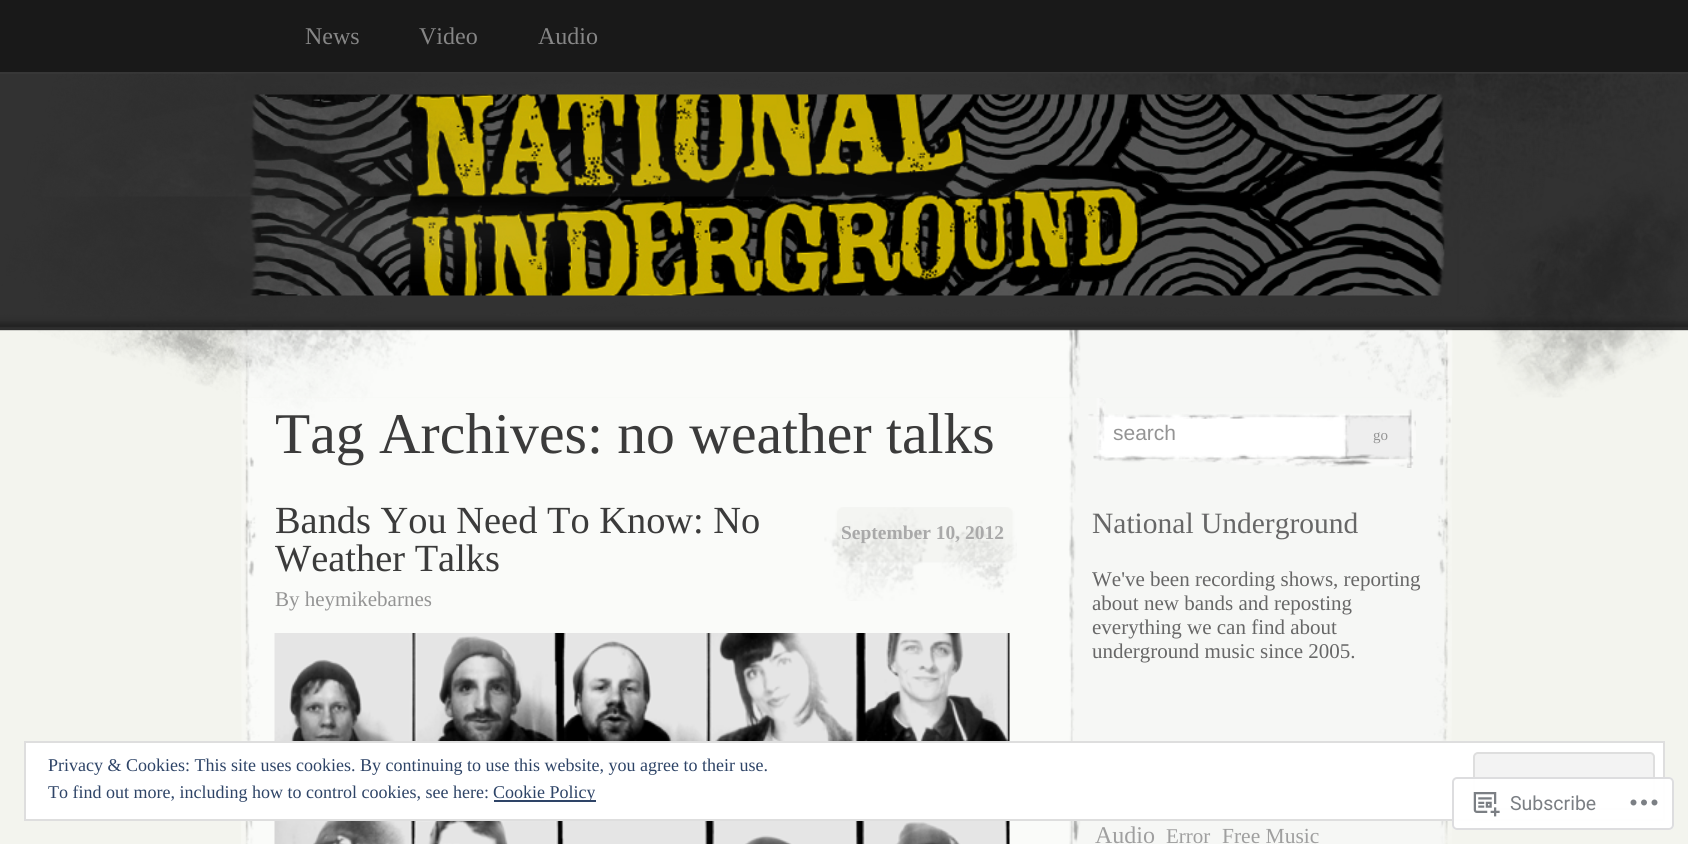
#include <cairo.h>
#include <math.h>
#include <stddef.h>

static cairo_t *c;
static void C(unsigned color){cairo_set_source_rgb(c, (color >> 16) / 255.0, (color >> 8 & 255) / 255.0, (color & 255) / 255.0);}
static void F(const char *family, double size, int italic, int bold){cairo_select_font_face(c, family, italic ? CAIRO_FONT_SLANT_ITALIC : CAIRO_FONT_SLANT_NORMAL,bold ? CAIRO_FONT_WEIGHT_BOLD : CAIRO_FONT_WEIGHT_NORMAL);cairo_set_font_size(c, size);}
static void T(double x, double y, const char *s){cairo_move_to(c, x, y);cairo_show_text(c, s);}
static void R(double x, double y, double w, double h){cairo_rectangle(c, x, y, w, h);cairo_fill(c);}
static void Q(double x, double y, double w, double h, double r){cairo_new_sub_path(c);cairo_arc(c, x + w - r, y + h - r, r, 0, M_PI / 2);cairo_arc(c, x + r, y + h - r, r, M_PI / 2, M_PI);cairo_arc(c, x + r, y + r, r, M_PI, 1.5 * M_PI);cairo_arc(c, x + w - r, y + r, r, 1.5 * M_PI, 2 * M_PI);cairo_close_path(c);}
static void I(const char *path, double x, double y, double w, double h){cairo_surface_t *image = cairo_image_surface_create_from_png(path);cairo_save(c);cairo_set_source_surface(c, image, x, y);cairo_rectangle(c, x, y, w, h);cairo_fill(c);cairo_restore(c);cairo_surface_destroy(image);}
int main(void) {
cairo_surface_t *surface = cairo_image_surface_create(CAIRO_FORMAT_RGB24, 1688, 844);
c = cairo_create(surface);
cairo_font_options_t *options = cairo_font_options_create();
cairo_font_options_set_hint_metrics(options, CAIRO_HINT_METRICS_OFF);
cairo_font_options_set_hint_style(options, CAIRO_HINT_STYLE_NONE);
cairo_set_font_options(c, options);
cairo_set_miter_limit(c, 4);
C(0xf3f4ee);
cairo_paint(c);
C(0x191919);
R(0,0,1688,72);
C(0x373737);
R(0,72,1688,2);
F("Liberation Serif",24,0,0);
C(0x868686);
T(305,44,"News");
T(419,44,"Video");
T(538,44,"Audio");
I("1.png",0,74,1688,256);
I("3.png",248,94,1197,202);
I("4.png",241,397,1211,447);
I("2.png",0,73,1688,325);
F("Liberation Serif",57.6,0,0);
C(0x3b3b3b);
T(275,453,"Tag Archives: no weather talks");
F("Liberation Serif",38.4,0,0);
T(275,533,"Bands You Need To Know: No");
T(275,571,"Weather Talks");
I("5.png",824,507,193,94);
F("Liberation Serif",19.5,0,1);
C(0xa9a9a9);
T(841,539,"September 10, 2012");
F("Liberation Serif",21,0,0);
C(0x949494);
T(275,606,"By heymikebarnes");
I("6.png",274,633,736,211);
I("7.png",1088,398,328,70);
C(0xffffff);
R(1130,419,189,2);
F("Liberation Sans",21,0,0);
C(0x949494);
T(1113,440,"search");
F("Liberation Serif",15,0,0);
T(1373,440,"go");
F("Liberation Serif",29.5,0,0);
C(0x676767);
T(1092,533,"National Underground");
F("Liberation Serif",21,0,0);
T(1092,586,"We've been recording shows, reporting");
T(1092,610,"about new bands and reposting");
T(1092,634,"everything we can find about");
T(1092,658,"underground music since 2005.");
F("Liberation Serif",24,0,0);
C(0x9f9f9f);
T(1095,843,"Audio");
F("Liberation Serif",21,0,0);
T(1166,843,"Error");
F("Liberation Serif",21.5,0,0);
T(1222,843,"Free Music");
C(0xffffff);
cairo_rectangle(c,25,742,1639,78);
cairo_fill_preserve(c);
C(0xdedede);
cairo_stroke(c);
F("Liberation Serif",18,0,0);
C(0x2e4467);
T(48,771,"Privacy & Cookies: This site uses cookies. By continuing to use this website, you agree to their use.");
C(0xf3f3f3);
Q(1474,753,180,56,4);
cairo_fill_preserve(c);
C(0xdedede);
cairo_stroke(c);
C(0x2e4467);
T(48,798,"To find out more, including how to control cookies, see here:");
R(494,800,102,2);
T(493,798,"Cookie Policy");
cairo_set_source_rgba(c,1,1,1,0.98);
Q(1452,777,222,53,5);
cairo_fill(c);
Q(1453,778,220,51,4);
cairo_set_source_rgba(c,0.863,0.863,0.871,0.98);
cairo_stroke(c);
I("8.png",1473,792,27,25);
F("Roboto",19.5,0,0);
C(0x7b7f84);
T(1510,810,"Subscribe");
I("9.png",1630,799,28,7);
cairo_surface_write_to_png(surface, "o.png");
cairo_font_options_destroy(options);
cairo_destroy(c);
cairo_surface_destroy(surface);
return 0;
}
